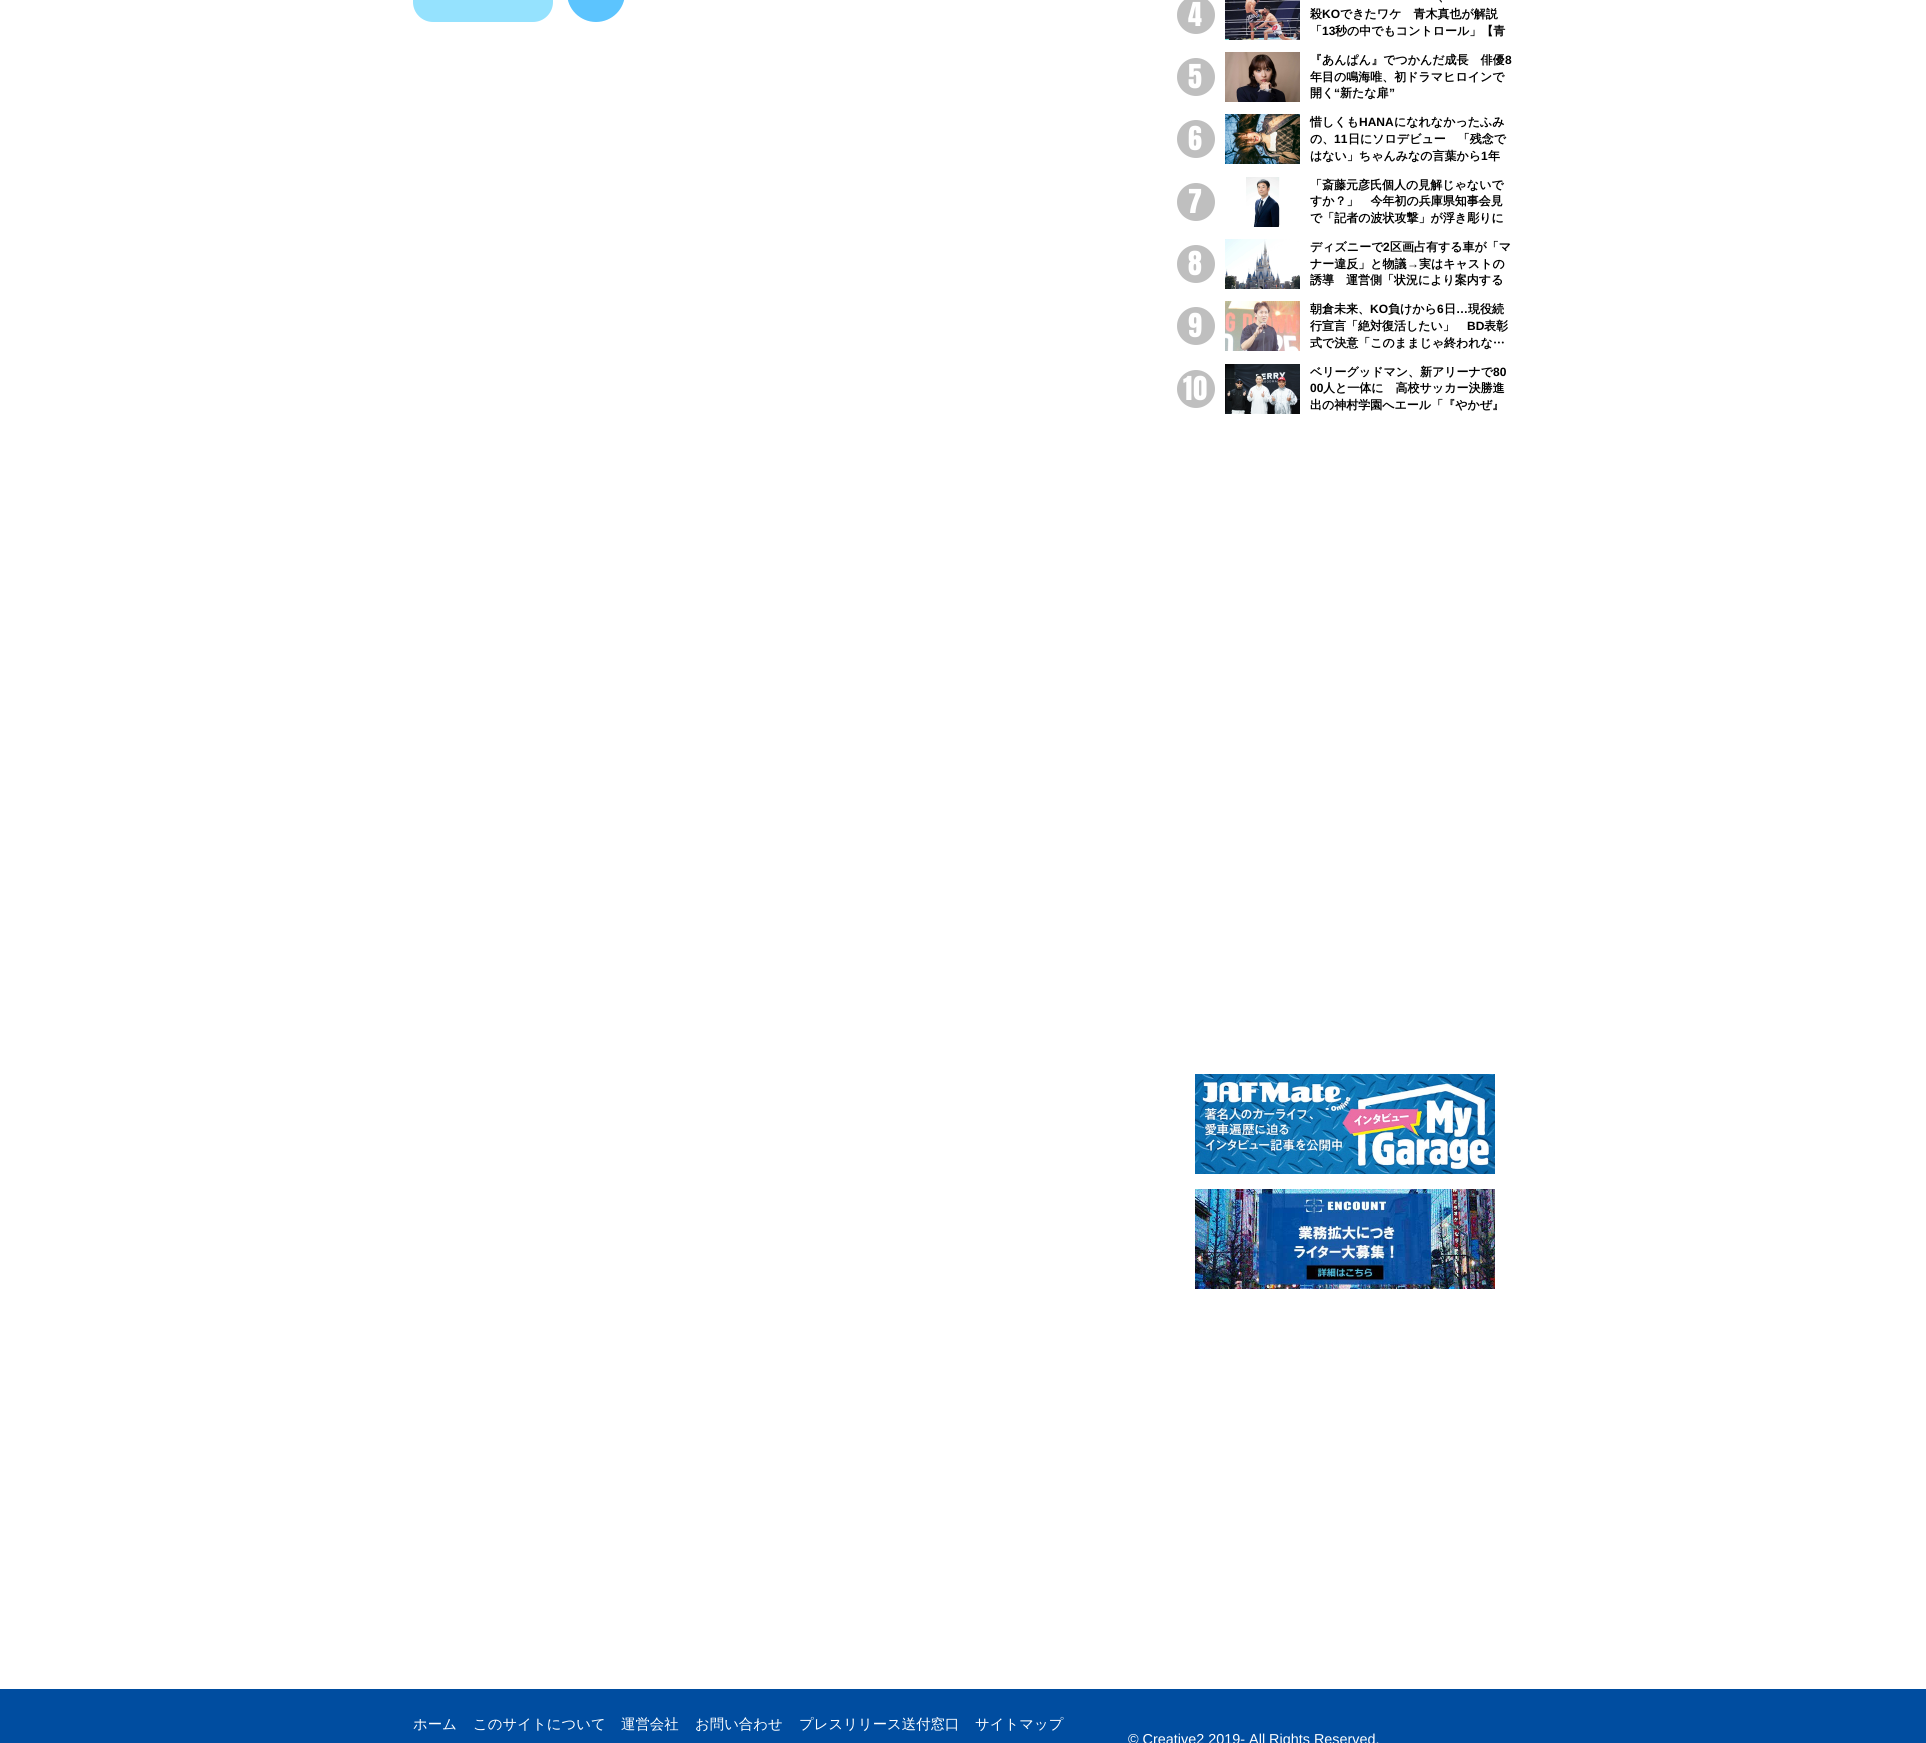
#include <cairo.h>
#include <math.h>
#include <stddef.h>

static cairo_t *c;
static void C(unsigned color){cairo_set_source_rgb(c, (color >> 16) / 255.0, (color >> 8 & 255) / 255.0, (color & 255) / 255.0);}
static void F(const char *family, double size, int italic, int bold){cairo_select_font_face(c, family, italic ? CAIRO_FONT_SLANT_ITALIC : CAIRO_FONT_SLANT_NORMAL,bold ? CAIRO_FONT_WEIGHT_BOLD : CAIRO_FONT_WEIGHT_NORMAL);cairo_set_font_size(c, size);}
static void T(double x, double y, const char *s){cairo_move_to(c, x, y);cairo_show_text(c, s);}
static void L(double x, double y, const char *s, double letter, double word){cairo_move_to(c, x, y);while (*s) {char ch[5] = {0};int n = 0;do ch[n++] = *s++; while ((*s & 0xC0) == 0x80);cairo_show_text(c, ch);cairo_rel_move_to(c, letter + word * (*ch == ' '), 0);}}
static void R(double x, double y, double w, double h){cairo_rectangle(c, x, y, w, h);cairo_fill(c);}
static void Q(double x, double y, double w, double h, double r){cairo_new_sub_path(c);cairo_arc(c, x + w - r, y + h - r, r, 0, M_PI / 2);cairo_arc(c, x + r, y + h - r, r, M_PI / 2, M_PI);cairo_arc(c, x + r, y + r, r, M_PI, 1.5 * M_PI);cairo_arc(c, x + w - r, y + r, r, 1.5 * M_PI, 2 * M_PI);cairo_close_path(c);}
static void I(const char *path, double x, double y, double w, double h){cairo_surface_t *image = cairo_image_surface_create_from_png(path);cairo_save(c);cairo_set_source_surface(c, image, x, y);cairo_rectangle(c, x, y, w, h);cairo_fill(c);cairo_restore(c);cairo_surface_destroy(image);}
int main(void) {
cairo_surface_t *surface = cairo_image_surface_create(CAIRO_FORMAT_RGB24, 1926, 1743);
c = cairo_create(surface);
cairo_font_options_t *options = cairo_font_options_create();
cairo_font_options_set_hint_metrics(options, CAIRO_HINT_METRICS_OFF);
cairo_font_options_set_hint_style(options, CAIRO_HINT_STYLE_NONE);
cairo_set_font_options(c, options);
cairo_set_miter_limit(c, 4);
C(0xffffff);
cairo_paint(c);
C(0x95e2fe);
Q(413,-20,140,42,20);
cairo_fill(c);
C(0x5cc4fe);
Q(567,-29,58,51,29);
cairo_fill(c);
C(0xbfbfbf);
cairo_arc(c,1196,15,19,0,2 * M_PI);
cairo_fill(c);
F("Anton",28,0,0);
C(0xffffff);
L(1188,26,"4",1,0);
I("1.png",1225,0,75,40);
F("WenQuanYi Zen Hei",12,0,1);
C(0x000000);
T(1438,1,"、");
T(1310,18,"殺");
F("Liberation Sans",12,0,1);
T(1322,18,"KO");
F("WenQuanYi Zen Hei",12,0,1);
T(1340,18,"できたワケ　青木真也が解説");
T(1310,35,"「");
F("Liberation Sans",12,0,1);
T(1322,35,"13");
F("WenQuanYi Zen Hei",12,0,1);
T(1335,35,"秒の中でもコントロール」【青");
C(0xbfbfbf);
cairo_new_path(c);
cairo_arc(c,1196,77,19,0,2 * M_PI);
cairo_fill(c);
F("Anton",28,0,0);
C(0xffffff);
L(1188,88,"5",1,0);
I("2.png",1225,52,75,50);
F("WenQuanYi Zen Hei",12,0,1);
C(0x000000);
T(1310,64,"『あんぱん』でつかんだ成長　俳優");
F("Liberation Sans",12,0,1);
T(1505,64,"8");
F("WenQuanYi Zen Hei",12,0,1);
T(1310,81,"年目の鳴海唯、初ドラマヒロインで");
T(1310,97,"開く");
F("Liberation Sans",12,0,1);
T(1334,97,"“");
F("WenQuanYi Zen Hei",12,0,1);
T(1340,97,"新たな扉");
F("Liberation Sans",12,0,1);
T(1389,97,"”");
C(0xbfbfbf);
cairo_new_path(c);
cairo_arc(c,1196,139,19,0,2 * M_PI);
cairo_fill(c);
F("Anton",28,0,0);
C(0xffffff);
L(1188,150,"6",1,0);
I("3.png",1225,114,75,50);
F("WenQuanYi Zen Hei",12,0,1);
C(0x000000);
T(1310,126,"惜しくも");
F("Liberation Sans",12,0,1);
T(1359,126,"HANA");
F("WenQuanYi Zen Hei",12,0,1);
T(1394,126,"になれなかったふみ");
T(1310,143,"の、");
F("Liberation Sans",12,0,1);
T(1334,143,"11");
F("WenQuanYi Zen Hei",12,0,1);
T(1348,143,"日にソロデビュー　「残念で");
T(1310,160,"はない」ちゃんみなの言葉から");
F("Liberation Sans",12,0,1);
T(1481,160,"1");
F("WenQuanYi Zen Hei",12,0,1);
T(1488,160,"年");
C(0xbfbfbf);
cairo_new_path(c);
cairo_arc(c,1196,202,19,0,2 * M_PI);
cairo_fill(c);
F("Anton",28,0,0);
C(0xffffff);
L(1188,213,"7",1,0);
I("4.png",1246,177,34,50);
F("WenQuanYi Zen Hei",12,0,1);
C(0x000000);
T(1310,189,"「斎藤元彦氏個人の見解じゃないで");
T(1310,205,"すか？」　今年初の兵庫県知事会見");
T(1310,222,"で「記者の波状攻撃」が浮き彫りに");
C(0xbfbfbf);
cairo_new_path(c);
cairo_arc(c,1196,264,19,0,2 * M_PI);
cairo_fill(c);
F("Anton",28,0,0);
C(0xffffff);
L(1188,275,"8",1,0);
I("5.png",1225,239,75,50);
F("WenQuanYi Zen Hei",12,0,1);
C(0x000000);
T(1310,251,"ディズニーで");
F("Liberation Sans",12,0,1);
T(1383,251,"2");
F("WenQuanYi Zen Hei",12,0,1);
T(1390,251,"区画占有する車が「マ");
T(1310,268,"ナー違反」と物議");
F("Liberation Sans",12,0,1);
T(1407,268,"→");
F("WenQuanYi Zen Hei",12,0,1);
T(1419,268,"実はキャストの");
T(1310,284,"誘導　運営側「状況により案内する");
C(0xbfbfbf);
cairo_new_path(c);
cairo_arc(c,1196,326,19,0,2 * M_PI);
cairo_fill(c);
F("Anton",28,0,0);
C(0xffffff);
L(1188,337,"9",1,0);
I("6.png",1225,301,75,50);
F("WenQuanYi Zen Hei",12,0,1);
C(0x000000);
T(1310,313,"朝倉未来、");
F("Liberation Sans",12,0,1);
T(1370,313,"KO");
F("WenQuanYi Zen Hei",12,0,1);
T(1388,313,"負けから");
F("Liberation Sans",12,0,1);
T(1437,313,"6");
F("WenQuanYi Zen Hei",12,0,1);
T(1444,313,"日");
F("Liberation Sans",12,0,1);
T(1456,313,"…");
F("WenQuanYi Zen Hei",12,0,1);
T(1468,313,"現役続");
T(1310,330,"行宣言「絶対復活したい」");
F("Liberation Sans",12,0,1);
T(1467,330,"BD");
F("WenQuanYi Zen Hei",12,0,1);
T(1484,330,"表彰");
T(1310,347,"式で決意「このままじゃ終われな…");
C(0xbfbfbf);
cairo_new_path(c);
cairo_arc(c,1196,389,19,0,2 * M_PI);
cairo_fill(c);
F("Anton",28,0,0);
C(0xffffff);
L(1183,400,"10",1,0);
I("7.png",1225,364,75,50);
F("WenQuanYi Zen Hei",12,0,1);
C(0x000000);
T(1310,376,"ベリーグッドマン、新アリーナで");
F("Liberation Sans",12,0,1);
T(1493,376,"80");
T(1310,392,"00");
F("WenQuanYi Zen Hei",12,0,1);
T(1323,392,"人と一体に　高校サッカー決勝進");
T(1310,409,"出の神村学園へエール「『やかぜ』");
I("8.png",1195,1074,300,100);
I("9.png",1195,1189,300,100);
C(0x004da0);
R(0,1689,1926,54);
F("WenQuanYi Zen Hei Medium",14.4,0,0);
C(0xffffff);
T(413,1729,"ホーム");
T(473,1729,"このサイトについて");
T(621,1729,"運営会社");
T(695,1729,"お問い合わせ");
T(799,1729,"プレスリリース送付窓口");
T(975,1729,"サイトマップ");
F("Liberation Sans",14.4,0,0);
T(1128,1744,"© Creative2 2019- All Rights Reserved.");
cairo_surface_write_to_png(surface, "o.png");
cairo_font_options_destroy(options);
cairo_destroy(c);
cairo_surface_destroy(surface);
return 0;
}
